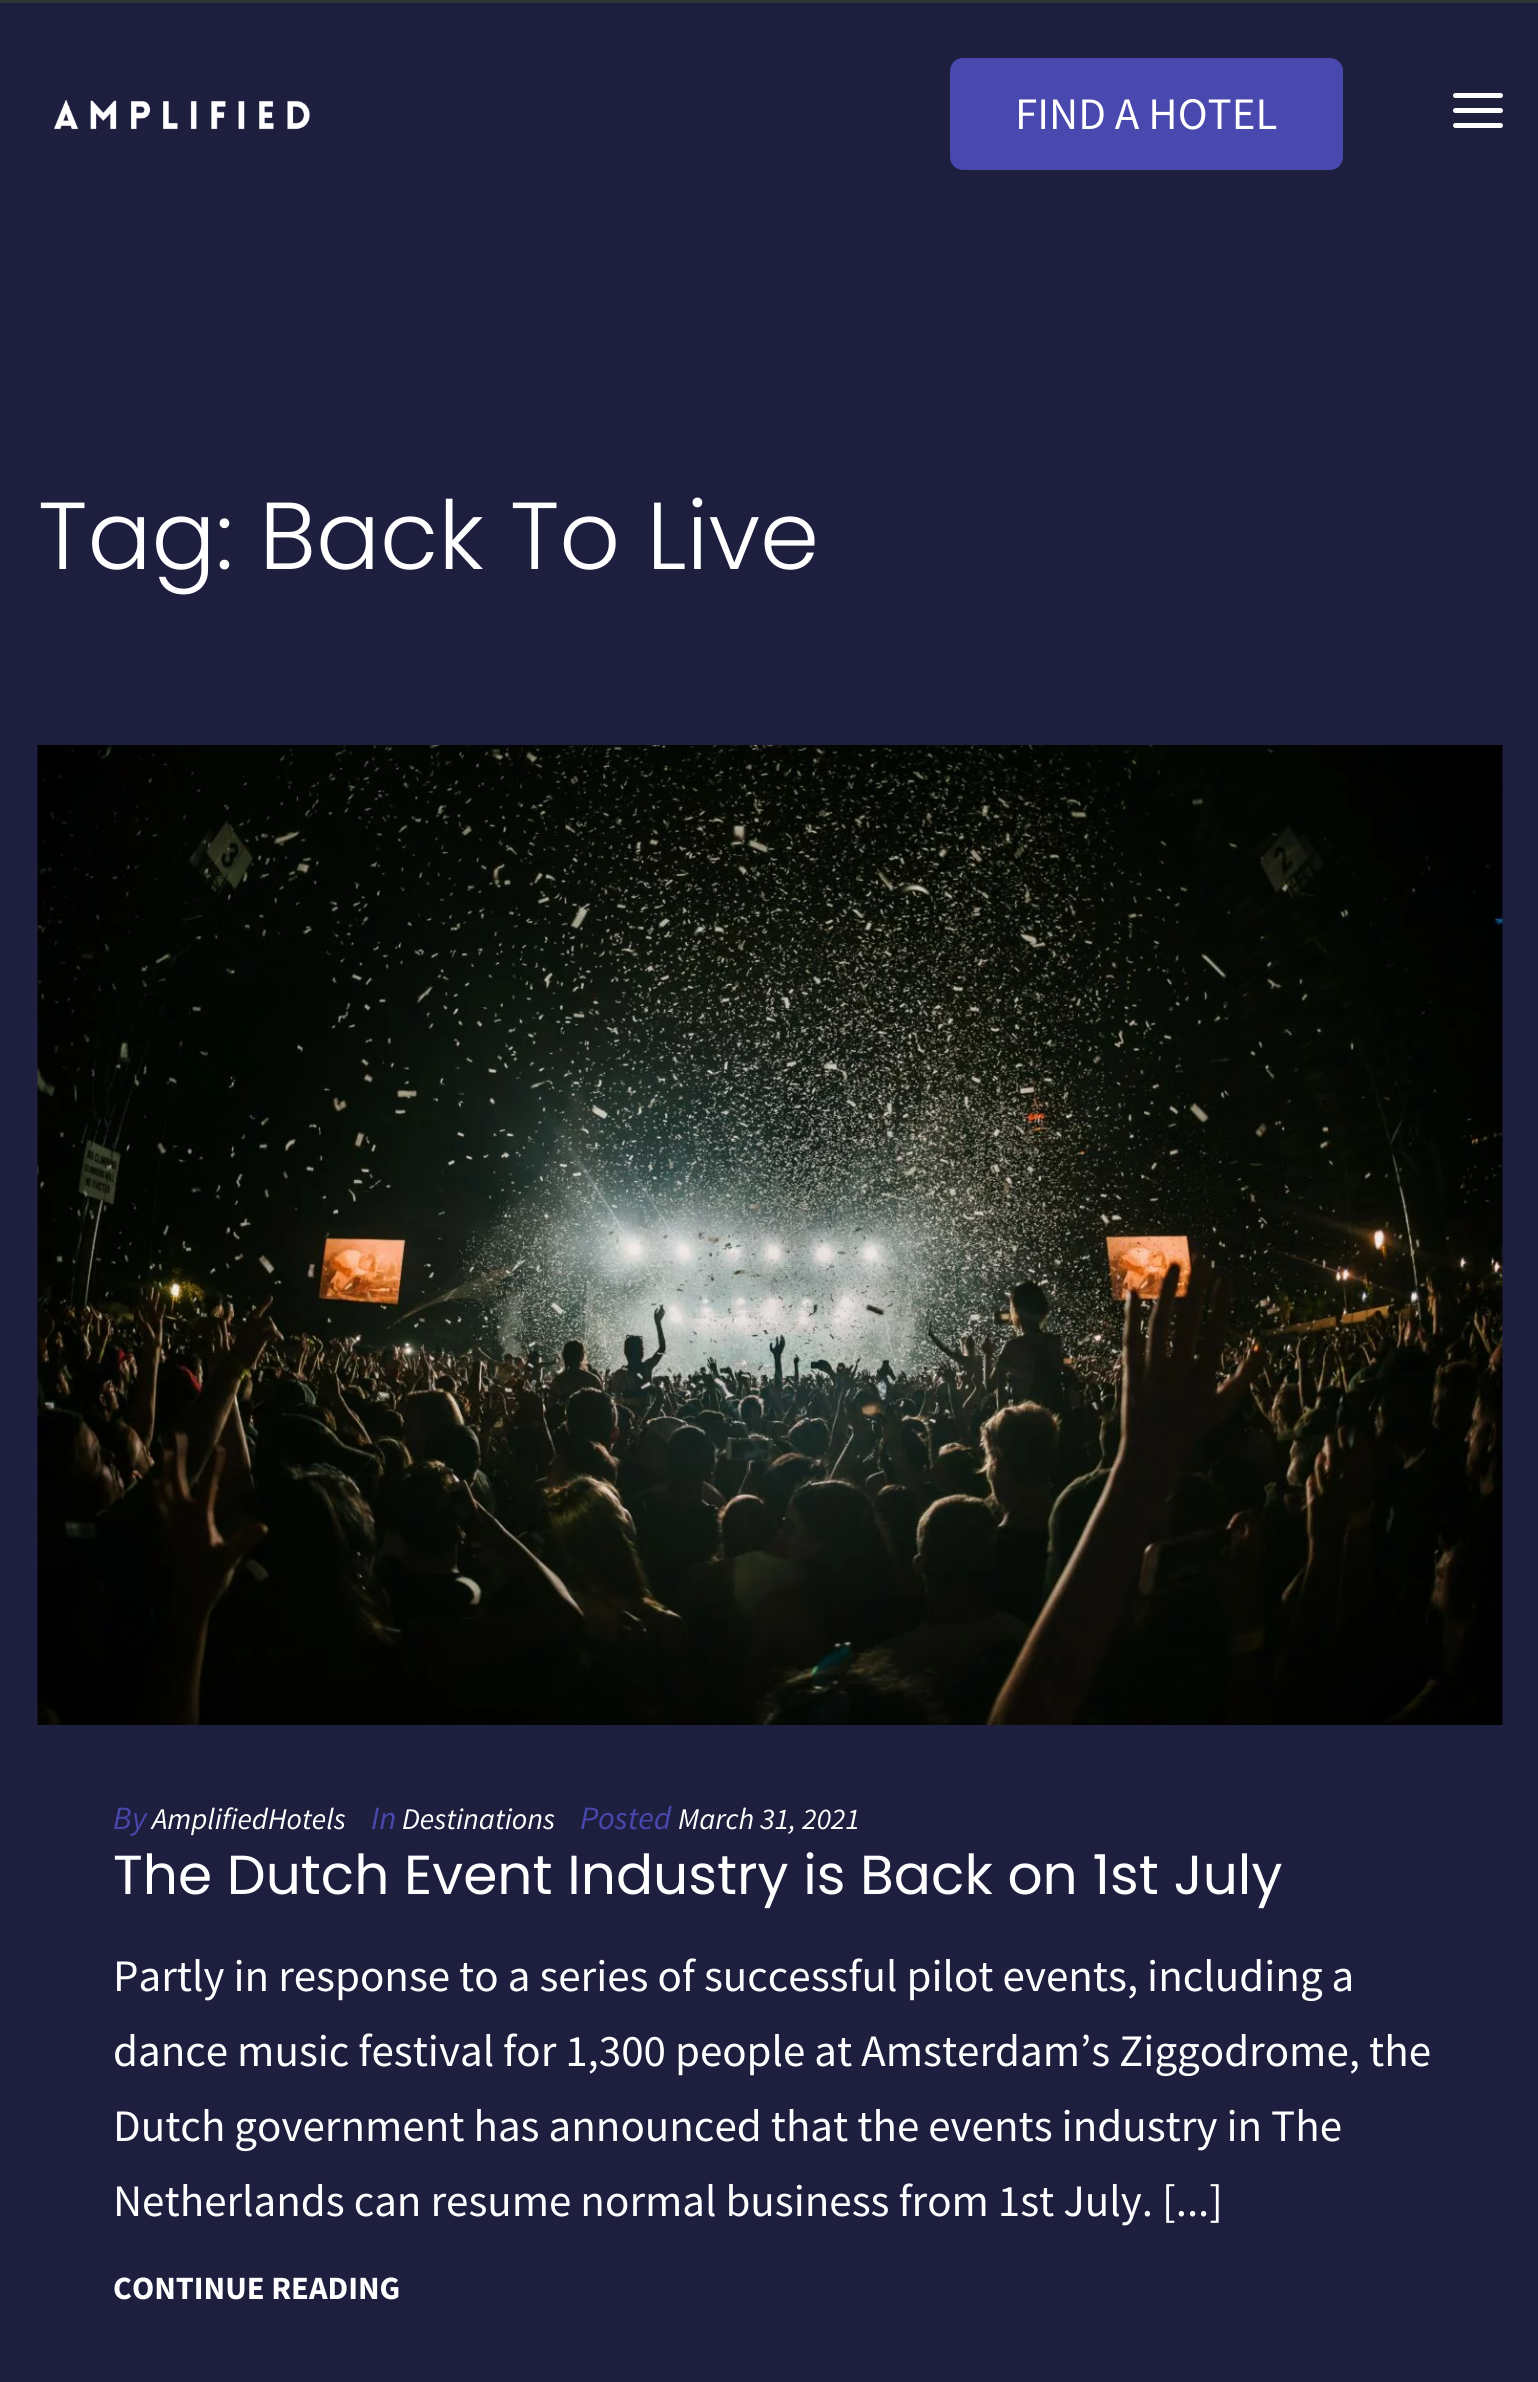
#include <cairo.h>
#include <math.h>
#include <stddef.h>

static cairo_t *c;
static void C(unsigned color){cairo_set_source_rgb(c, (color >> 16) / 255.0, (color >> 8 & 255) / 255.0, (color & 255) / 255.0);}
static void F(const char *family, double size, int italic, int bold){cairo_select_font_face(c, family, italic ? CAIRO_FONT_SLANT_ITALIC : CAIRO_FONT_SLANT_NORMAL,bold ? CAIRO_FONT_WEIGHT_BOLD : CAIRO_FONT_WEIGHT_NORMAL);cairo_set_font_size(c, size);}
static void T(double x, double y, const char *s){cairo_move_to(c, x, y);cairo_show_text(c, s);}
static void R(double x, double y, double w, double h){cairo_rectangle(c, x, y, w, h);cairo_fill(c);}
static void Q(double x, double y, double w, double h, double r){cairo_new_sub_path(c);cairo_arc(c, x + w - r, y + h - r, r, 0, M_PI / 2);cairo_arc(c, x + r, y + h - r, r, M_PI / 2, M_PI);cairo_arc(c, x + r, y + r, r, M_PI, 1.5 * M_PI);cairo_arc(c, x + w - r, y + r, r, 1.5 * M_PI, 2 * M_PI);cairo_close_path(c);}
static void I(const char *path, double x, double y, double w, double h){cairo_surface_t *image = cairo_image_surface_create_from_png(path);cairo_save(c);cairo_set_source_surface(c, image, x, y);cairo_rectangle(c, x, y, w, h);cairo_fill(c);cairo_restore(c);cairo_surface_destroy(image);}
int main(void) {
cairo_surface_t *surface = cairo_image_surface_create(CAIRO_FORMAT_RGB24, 1538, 2382);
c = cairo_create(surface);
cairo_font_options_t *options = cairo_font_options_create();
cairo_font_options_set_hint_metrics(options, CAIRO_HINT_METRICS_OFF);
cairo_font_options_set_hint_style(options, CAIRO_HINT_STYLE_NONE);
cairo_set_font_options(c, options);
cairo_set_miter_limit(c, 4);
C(0x1e1e3e);
cairo_paint(c);
C(0x2d3535);
R(0,0,1538,3);
I("1.png",54,100,256,30);
C(0x4848ae);
Q(950,58,393,112,13);
cairo_fill(c);
F("Source Sans Pro",45,0,0);
C(0xffffff);
T(1015,129,"FIND A HOTEL");
Q(1453,93,50,5,2.5);
cairo_fill(c);
Q(1453,108,50,5,2.5);
cairo_fill(c);
Q(1453,123,50,5,2.5);
cairo_fill(c);
F("Poppins Light",95,0,0);
T(38,569,"Tag: Back To Live");
I("2.png",37,745,1466,980);
F("Source Sans Pro",32.5,1,0);
C(0x4848af);
T(113,1829,"By");
F("Source Sans Pro",30,1,0);
C(0xffffff);
T(152,1829,"AmplifiedHotels");
F("Source Sans Pro",32.5,1,0);
C(0x4848af);
T(371,1829,"In");
F("Source Sans Pro",30,1,0);
C(0xffffff);
T(402,1829,"Destinations");
F("Source Sans Pro",32.5,1,0);
C(0x4848af);
T(580,1829,"Posted");
F("Source Sans Pro",30,1,0);
C(0xffffff);
T(678,1829,"March 31, 2021");
F("Poppins",55,0,0);
T(113,1894,"The Dutch Event Industry is Back on 1st July");
F("Source Sans Pro",45,0,0);
T(113,1991,"Partly in response to a series of successful pilot events, including a");
T(113,2066,"dance music festival for 1,300 people at Amsterdam’s Ziggodrome, the");
T(113,2141,"Dutch government has announced that the events industry in The");
T(113,2216,"Netherlands can resume normal business from 1st July. [...]");
F("Source Sans Pro",32.5,0,1);
T(113,2299,"CONTINUE READING");
cairo_surface_write_to_png(surface, "o.png");
cairo_font_options_destroy(options);
cairo_destroy(c);
cairo_surface_destroy(surface);
return 0;
}
